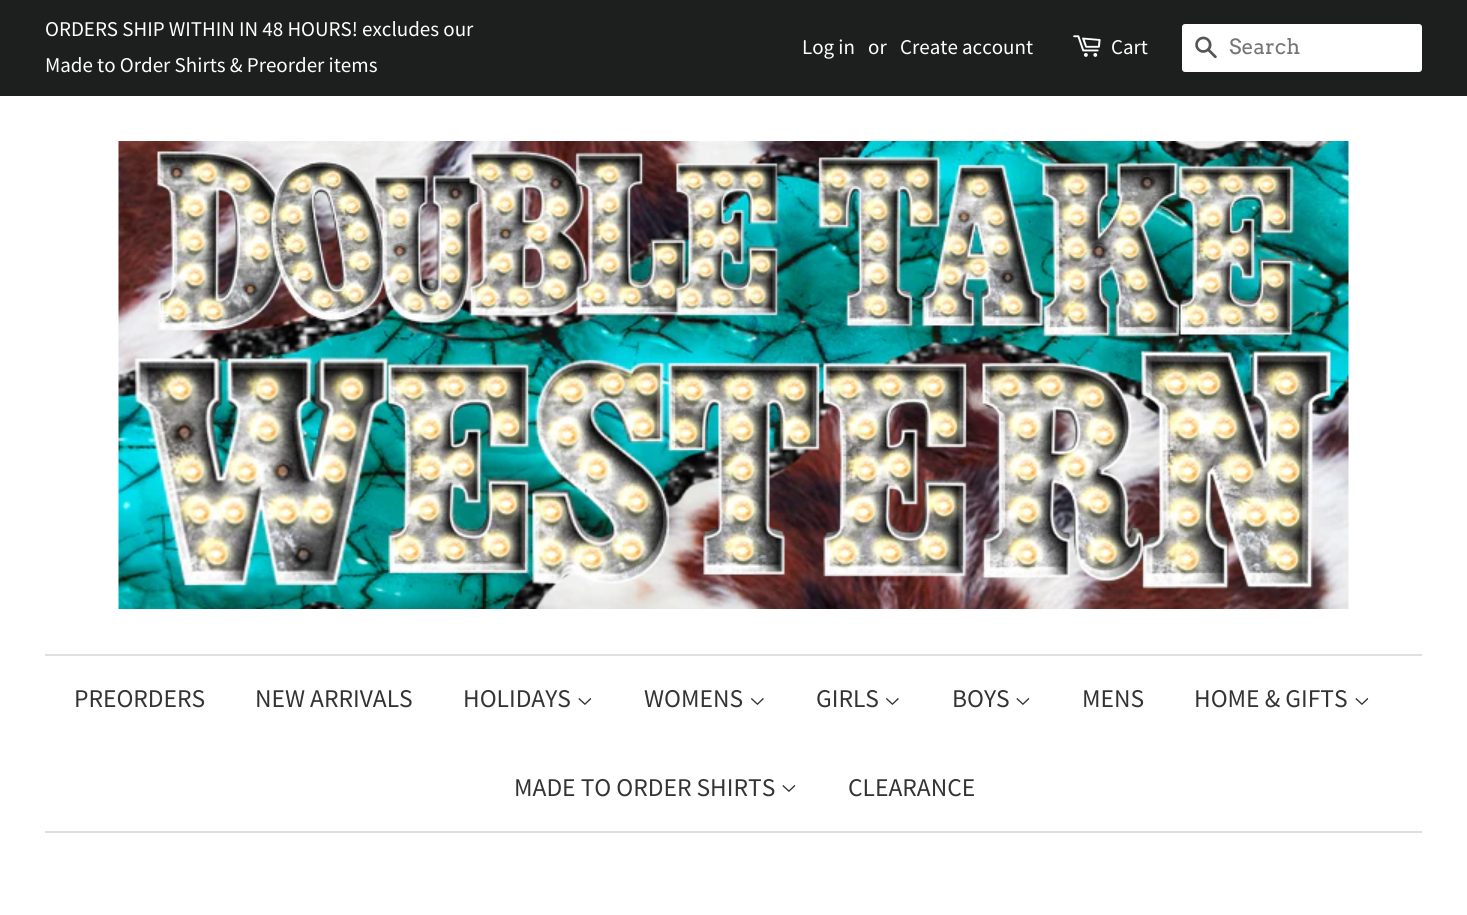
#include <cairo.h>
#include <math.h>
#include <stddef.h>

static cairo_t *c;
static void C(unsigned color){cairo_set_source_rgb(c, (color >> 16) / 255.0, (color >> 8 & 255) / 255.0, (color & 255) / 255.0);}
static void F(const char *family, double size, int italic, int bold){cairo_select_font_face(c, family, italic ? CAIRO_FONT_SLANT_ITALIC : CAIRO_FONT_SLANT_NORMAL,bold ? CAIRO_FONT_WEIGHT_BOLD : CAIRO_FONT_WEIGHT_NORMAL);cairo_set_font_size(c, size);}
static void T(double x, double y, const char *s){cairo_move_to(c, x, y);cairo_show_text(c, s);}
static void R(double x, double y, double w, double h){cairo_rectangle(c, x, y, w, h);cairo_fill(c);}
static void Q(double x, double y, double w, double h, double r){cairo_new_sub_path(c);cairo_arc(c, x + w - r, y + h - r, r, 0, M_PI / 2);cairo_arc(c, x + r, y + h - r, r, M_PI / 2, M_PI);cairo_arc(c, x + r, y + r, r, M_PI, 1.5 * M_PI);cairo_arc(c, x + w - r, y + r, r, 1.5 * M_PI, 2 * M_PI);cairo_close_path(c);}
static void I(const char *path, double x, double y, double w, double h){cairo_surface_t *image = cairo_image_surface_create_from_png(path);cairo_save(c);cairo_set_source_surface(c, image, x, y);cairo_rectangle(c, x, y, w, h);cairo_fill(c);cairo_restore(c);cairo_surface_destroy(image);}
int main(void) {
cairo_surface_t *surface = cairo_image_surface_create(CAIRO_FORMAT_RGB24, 1467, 915);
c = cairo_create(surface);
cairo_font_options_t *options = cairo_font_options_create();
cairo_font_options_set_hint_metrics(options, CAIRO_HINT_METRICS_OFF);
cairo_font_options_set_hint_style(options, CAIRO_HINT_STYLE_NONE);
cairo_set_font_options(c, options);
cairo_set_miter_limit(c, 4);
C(0xffffff);
cairo_paint(c);
C(0x1d1e1e);
R(0,0,1467,96);
F("Source Sans Pro",21,0,0);
C(0xffffff);
T(45,36,"ORDERS SHIP WITHIN IN 48 HOURS! excludes our");
T(45,72,"Made to Order Shirts & Preorder items");
T(802,54,"Log in");
T(868,54,"or");
T(900,54,"Create account");
I("1.png",1073,35,28,22);
T(1111,54,"Cart");
Q(1182,24,240,48,3);
cairo_fill(c);
I("2.png",1195,36,22,23);
F("Arvo",21,0,0);
C(0x757575);
T(1229,54,"Search");
I("3.png",118,141,1231,468);
C(0xe1dedf);
R(45,654,1377,2);
R(45,831,1377,2);
F("Source Sans Pro",25.5,0,0);
C(0x333333);
T(74,707,"PREORDERS");
T(255,707,"NEW ARRIVALS");
T(463,707,"HOLIDAYS");
I("4.png",578,698,14,7);
T(644,707,"WOMENS");
I("5.png",751,698,13,7);
T(816,707,"GIRLS");
I("5.png",886,698,13,7);
T(952,707,"BOYS");
I("4.png",1016,698,14,7);
T(1082,707,"MENS");
T(1194,707,"HOME & GIFTS");
I("4.png",1355,698,14,7);
T(514,796,"MADE TO ORDER SHIRTS");
I("4.png",782,785,14,7);
T(848,796,"CLEARANCE");
cairo_surface_write_to_png(surface, "o.png");
cairo_font_options_destroy(options);
cairo_destroy(c);
cairo_surface_destroy(surface);
return 0;
}
